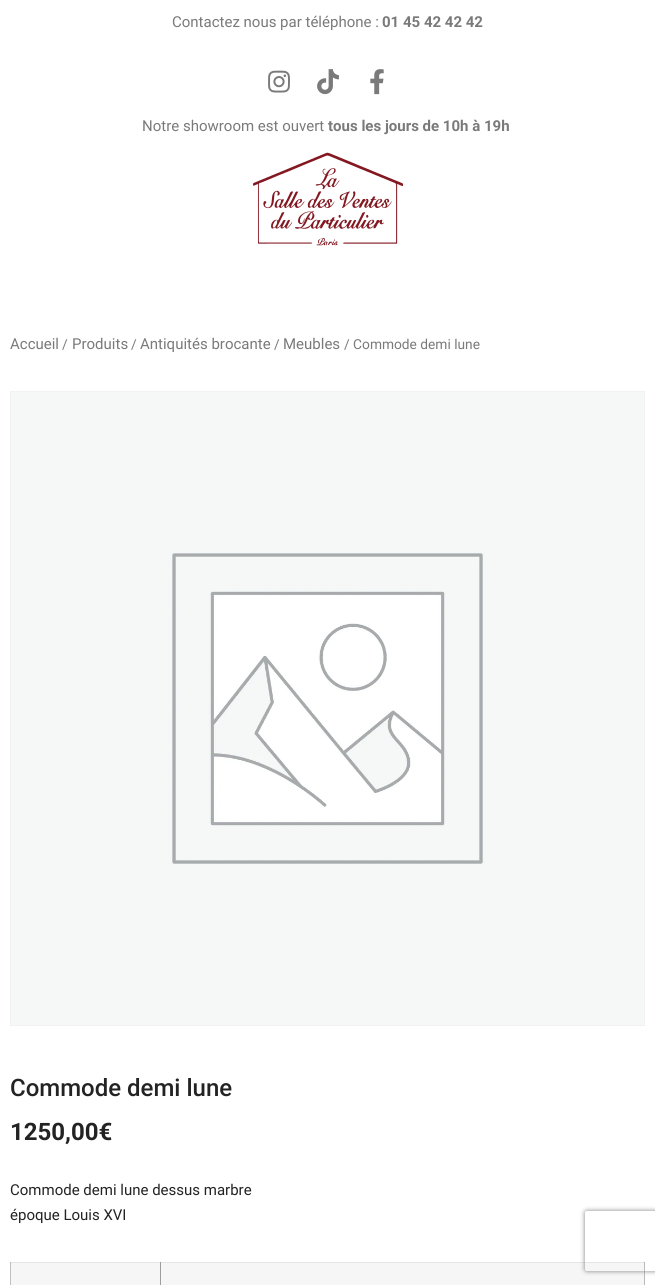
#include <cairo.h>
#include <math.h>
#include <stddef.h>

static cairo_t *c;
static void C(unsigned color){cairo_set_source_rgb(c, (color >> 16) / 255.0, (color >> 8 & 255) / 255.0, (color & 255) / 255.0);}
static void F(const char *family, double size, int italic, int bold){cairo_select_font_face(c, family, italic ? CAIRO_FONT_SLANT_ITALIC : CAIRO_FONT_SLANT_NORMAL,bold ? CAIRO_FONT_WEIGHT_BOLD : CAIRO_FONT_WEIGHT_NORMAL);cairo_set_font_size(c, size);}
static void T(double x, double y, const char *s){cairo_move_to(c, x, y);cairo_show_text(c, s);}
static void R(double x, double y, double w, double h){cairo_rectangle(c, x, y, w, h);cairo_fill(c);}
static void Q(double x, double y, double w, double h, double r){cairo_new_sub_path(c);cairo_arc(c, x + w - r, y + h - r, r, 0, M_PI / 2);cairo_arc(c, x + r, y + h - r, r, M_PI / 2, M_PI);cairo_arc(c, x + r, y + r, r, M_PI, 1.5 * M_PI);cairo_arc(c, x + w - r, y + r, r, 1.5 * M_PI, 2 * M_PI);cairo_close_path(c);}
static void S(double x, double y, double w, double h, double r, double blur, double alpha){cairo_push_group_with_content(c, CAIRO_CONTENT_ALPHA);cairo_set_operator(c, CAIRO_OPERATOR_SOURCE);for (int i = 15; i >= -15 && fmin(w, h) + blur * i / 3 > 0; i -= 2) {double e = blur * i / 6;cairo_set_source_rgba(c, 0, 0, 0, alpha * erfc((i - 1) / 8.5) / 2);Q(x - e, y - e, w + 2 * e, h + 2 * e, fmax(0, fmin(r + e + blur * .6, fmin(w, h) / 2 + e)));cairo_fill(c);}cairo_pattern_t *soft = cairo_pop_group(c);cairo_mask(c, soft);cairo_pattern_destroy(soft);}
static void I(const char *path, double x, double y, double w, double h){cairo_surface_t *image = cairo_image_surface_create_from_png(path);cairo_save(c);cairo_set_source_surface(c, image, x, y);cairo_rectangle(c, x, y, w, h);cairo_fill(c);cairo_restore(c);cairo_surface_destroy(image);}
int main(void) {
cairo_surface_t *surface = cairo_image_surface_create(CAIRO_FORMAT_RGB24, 655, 1285);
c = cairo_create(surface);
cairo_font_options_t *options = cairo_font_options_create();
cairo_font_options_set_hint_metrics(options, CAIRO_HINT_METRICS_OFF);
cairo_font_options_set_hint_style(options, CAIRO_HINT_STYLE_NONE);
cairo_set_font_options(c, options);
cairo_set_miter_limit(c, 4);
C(0xffffff);
cairo_paint(c);
C(0xc0c0c0);
R(10,1262,1,23);
F("Roboto",15,0,0);
C(0x7a7a7a);
T(172,27,"Contactez nous par téléphone :");
F("Roboto",15,0,1);
T(382,27,"01 45 42 42 42");
I("1.png",268,70,22,23);
I("2.png",317,69,22,26);
I("3.png",370,69,14,26);
F("Roboto",15,0,0);
T(142,131,"Notre showroom est ouvert");
F("Roboto",15,0,1);
T(328,131,"tous les jours de 10h à 19h");
I("4.png",253,152,150,94);
F("Roboto",15,0,0);
T(10,349,"Accueil");
F("Roboto",13.75,0,0);
T(62,349,"/");
F("Roboto",15,0,0);
T(72,349,"Produits");
F("Roboto",13.75,0,0);
T(131,349,"/");
F("Roboto",15,0,0);
T(140,349,"Antiquités brocante");
F("Roboto",13.75,0,0);
T(274,349,"/");
F("Roboto",15,0,0);
T(283,349,"Meubles");
F("Roboto",13.75,0,0);
T(344,349,"/ Commode demi lune");
cairo_rectangle(c,10.5,391.5,634,634);
C(0xf2f2f2);
cairo_set_line_width(c,1);
cairo_stroke(c);
I("5.png",11,392,633,633);
F("Roboto Medium",24,0,0);
C(0x232323);
T(10,1096,"Commode demi lune");
F("Roboto",24,0,1);
T(10,1140,"1250,00€");
F("Roboto",15,0,0);
T(10,1195,"Commode demi lune dessus marbre");
T(10,1220,"époque Louis XVI");
C(0xe6e6e6);
R(10,1262,635,1);
C(0xb3b3b3);
R(10,1262,1,1);
C(0x9a9a9a);
R(160,1262,1,1);
C(0xb3b3b3);
R(644,1262,1,1);
C(0xf6f6f6);
R(11,1263,149,22);
C(0x9e9e9e);
R(160,1263,1,22);
C(0xf6f6f6);
R(161,1263,483,22);
C(0xbbbbbb);
R(644,1263,1,22);
cairo_save(c);
cairo_set_fill_rule(c,CAIRO_FILL_RULE_EVEN_ODD);
cairo_new_path(c);
cairo_move_to(c,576,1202);
cairo_line_to(c,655,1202);
cairo_line_to(c,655,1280);
cairo_line_to(c,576,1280);
cairo_close_path(c);
cairo_move_to(c,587,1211);
cairo_line_to(c,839,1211);
cairo_curve_to(c,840,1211,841,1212,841,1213);
cairo_line_to(c,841,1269);
cairo_curve_to(c,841,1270,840,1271,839,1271);
cairo_line_to(c,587,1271);
cairo_curve_to(c,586,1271,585,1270,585,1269);
cairo_line_to(c,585,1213);
cairo_curve_to(c,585,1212,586,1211,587,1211);
cairo_close_path(c);
cairo_clip(c);
C(0x808080);
S(585,1211,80,60,2,2.5,1);
cairo_restore(c);
cairo_surface_write_to_png(surface, "o.png");
cairo_font_options_destroy(options);
cairo_destroy(c);
cairo_surface_destroy(surface);
return 0;
}
